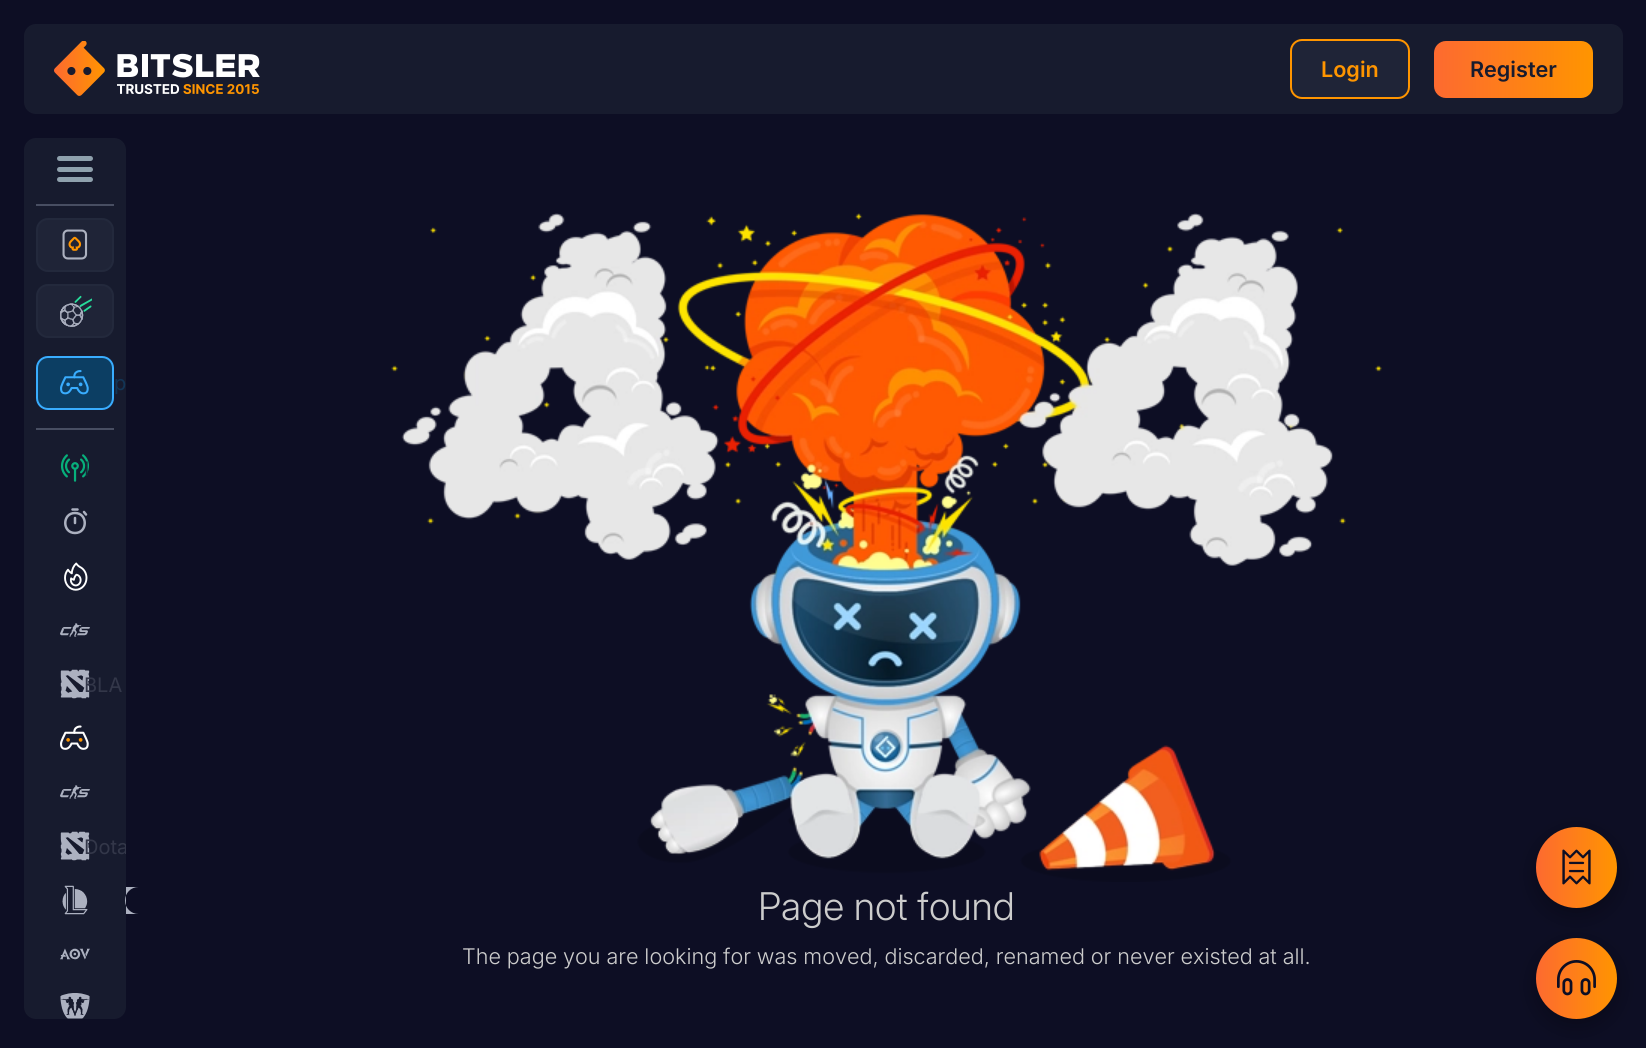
#include <cairo.h>
#include <math.h>
#include <stddef.h>

static cairo_t *c;
static void C(unsigned color){cairo_set_source_rgb(c, (color >> 16) / 255.0, (color >> 8 & 255) / 255.0, (color & 255) / 255.0);}
static void F(const char *family, double size, int italic, int bold){cairo_select_font_face(c, family, italic ? CAIRO_FONT_SLANT_ITALIC : CAIRO_FONT_SLANT_NORMAL,bold ? CAIRO_FONT_WEIGHT_BOLD : CAIRO_FONT_WEIGHT_NORMAL);cairo_set_font_size(c, size);}
static void T(double x, double y, const char *s){cairo_move_to(c, x, y);cairo_show_text(c, s);}
static void L(double x, double y, const char *s, double letter, double word){cairo_move_to(c, x, y);while (*s) {char ch[5] = {0};int n = 0;do ch[n++] = *s++; while ((*s & 0xC0) == 0x80);cairo_show_text(c, ch);cairo_rel_move_to(c, letter + word * (*ch == ' '), 0);}}
static void R(double x, double y, double w, double h){cairo_rectangle(c, x, y, w, h);cairo_fill(c);}
static void Q(double x, double y, double w, double h, double r){cairo_new_sub_path(c);cairo_arc(c, x + w - r, y + h - r, r, 0, M_PI / 2);cairo_arc(c, x + r, y + h - r, r, M_PI / 2, M_PI);cairo_arc(c, x + r, y + r, r, M_PI, 1.5 * M_PI);cairo_arc(c, x + w - r, y + r, r, 1.5 * M_PI, 2 * M_PI);cairo_close_path(c);}
static void S(double x, double y, double w, double h, double r, double blur, double alpha){cairo_push_group_with_content(c, CAIRO_CONTENT_ALPHA);cairo_set_operator(c, CAIRO_OPERATOR_SOURCE);for (int i = 15; i >= -15 && fmin(w, h) + blur * i / 3 > 0; i -= 2) {double e = blur * i / 6;cairo_set_source_rgba(c, 0, 0, 0, alpha * erfc((i - 1) / 8.5) / 2);Q(x - e, y - e, w + 2 * e, h + 2 * e, fmax(0, fmin(r + e + blur * .6, fmin(w, h) / 2 + e)));cairo_fill(c);}cairo_pattern_t *soft = cairo_pop_group(c);cairo_mask(c, soft);cairo_pattern_destroy(soft);}
static void I(const char *path, double x, double y, double w, double h){cairo_surface_t *image = cairo_image_surface_create_from_png(path);cairo_save(c);cairo_set_source_surface(c, image, x, y);cairo_rectangle(c, x, y, w, h);cairo_fill(c);cairo_restore(c);cairo_surface_destroy(image);}
int main(void) {
cairo_surface_t *surface = cairo_image_surface_create(CAIRO_FORMAT_RGB24, 1646, 1048);
c = cairo_create(surface);
cairo_font_options_t *options = cairo_font_options_create();
cairo_font_options_set_hint_metrics(options, CAIRO_HINT_METRICS_OFF);
cairo_font_options_set_hint_style(options, CAIRO_HINT_STYLE_NONE);
cairo_set_font_options(c, options);
cairo_set_miter_limit(c, 4);
cairo_pattern_t *gradient;
C(0x0d0e24);
cairo_paint(c);
C(0x171b2e);
Q(24,24,1599,90,12);
cairo_fill(c);
I("1.png",54,41,206,55);
C(0x1f2437);
Q(1291,40,118,58,11);
cairo_fill_preserve(c);
C(0xff9500);
cairo_stroke(c);
F("Inter SemiBold",21.6,0,0);
T(1321,77,"Login");
gradient = cairo_pattern_create_linear(1434,69,1593,69);
cairo_pattern_add_color_stop_rgba(gradient,0,0.992,0.416,0.188,1);
cairo_pattern_add_color_stop_rgba(gradient,1,1,0.584,0,1);
cairo_set_source(c,gradient);
cairo_pattern_destroy(gradient);
Q(1434,41,159,57,12);
cairo_fill(c);
C(0x171b2e);
T(1470,77,"Register");
Q(24,138,102,881,12);
cairo_fill(c);
C(0x8fa1ad);
Q(57,156,36,5,2.5);
cairo_fill(c);
Q(57,167,36,5,2.5);
cairo_fill(c);
Q(57,177,36,5,2.5);
cairo_fill(c);
C(0x484e62);
R(36,204,78,2);
C(0x1f2437);
Q(37,219,76,52,11);
cairo_fill_preserve(c);
C(0x23293c);
cairo_stroke(c);
I("2.png",62,229,26,31);
C(0x1f2437);
Q(37,285,76,52,11);
cairo_fill_preserve(c);
C(0x23293c);
cairo_stroke(c);
I("3.png",60,295,32,32);
C(0x0c3e63);
Q(37,357,76,52,11);
cairo_fill_preserve(c);
C(0x39adff);
cairo_stroke(c);
I("4.png",60,370,29,25);
F("Inter",20,0,0);
C(0x123556);
T(114,390,"p");
C(0x484e62);
R(36,428,78,2);
I("5.png",60,454,29,28);
C(0x152a36);
T(84,476,"I");
cairo_new_path(c);
cairo_move_to(c,75,523);
cairo_line_to(c,75,518);
cairo_move_to(c,86,514.5);
cairo_line_to(c,84,512);
cairo_move_to(c,72.5,509.5);
cairo_line_to(c,77.5,509.5);
cairo_move_to(c,75,533);
cairo_curve_to(c,62,533,62,513,75,513);
cairo_curve_to(c,88,513,88,533,75,533);
cairo_close_path(c);
C(0xacb1c0);
cairo_set_line_width(c,2.5);
cairo_set_line_cap(c,CAIRO_LINE_CAP_ROUND);
cairo_set_line_join(c,CAIRO_LINE_JOIN_ROUND);
cairo_stroke(c);
I("6.png",64,562,24,29);
I("7.png",60,623,30,14);
I("8.png",60,669,30,30);
C(0x333749);
T(84,692,"BLA");
I("9.png",60,725,29,25);
I("10.png",60,785,30,14);
I("11.png",60,831,30,30);
cairo_save(c);
Q(24,138,102,881,12);
cairo_clip(c);
T(84,854,"Dota");
cairo_restore(c);
I("12.png",62,885,26,30);
C(0xacb1c0);
cairo_new_path(c);
cairo_move_to(c,138.5,887);
cairo_line_to(c,126,887);
cairo_line_to(c,126,914);
cairo_line_to(c,138.5,914);
cairo_curve_to(c,131,914,125,908,125,900.5);
cairo_curve_to(c,125,893,131,887,138.5,887);
cairo_close_path(c);
cairo_fill(c);
I("13.png",60,948,30,12);
I("14.png",60,993,30,26);
I("15.png",391,213,991,669);
F("Inter Light",38.25,0,0);
C(0xcccccc);
T(758,920,"Page not found");
F("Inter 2 Light",21.6,0,0);
L(462,964,"The page you are looking for was moved, discarded, renamed or never existed at all.",0,-.25);
C(0x000000);
S(1536,834,81,81,40.5,11,.3);
gradient = cairo_pattern_create_linear(1536,867,1617,867);
cairo_pattern_add_color_stop_rgba(gradient,0,0.992,0.416,0.188,1);
cairo_pattern_add_color_stop_rgba(gradient,1,1,0.584,0,1);
cairo_set_source(c,gradient);
cairo_pattern_destroy(gradient);
cairo_arc(c,1576.5,867.5,40.5,0,2 * M_PI);
cairo_fill(c);
I("16.png",1562,849,29,36);
C(0x000000);
S(1536,945,81,81,40.5,11,.3);
gradient = cairo_pattern_create_linear(1536,978,1617,978);
cairo_pattern_add_color_stop_rgba(gradient,0,0.992,0.416,0.188,1);
cairo_pattern_add_color_stop_rgba(gradient,1,1,0.584,0,1);
cairo_set_source(c,gradient);
cairo_pattern_destroy(gradient);
cairo_arc(c,1576.5,978.5,40.5,0,2 * M_PI);
cairo_fill(c);
I("17.png",1557,960,39,36);
cairo_surface_write_to_png(surface, "o.png");
cairo_font_options_destroy(options);
cairo_destroy(c);
cairo_surface_destroy(surface);
return 0;
}
